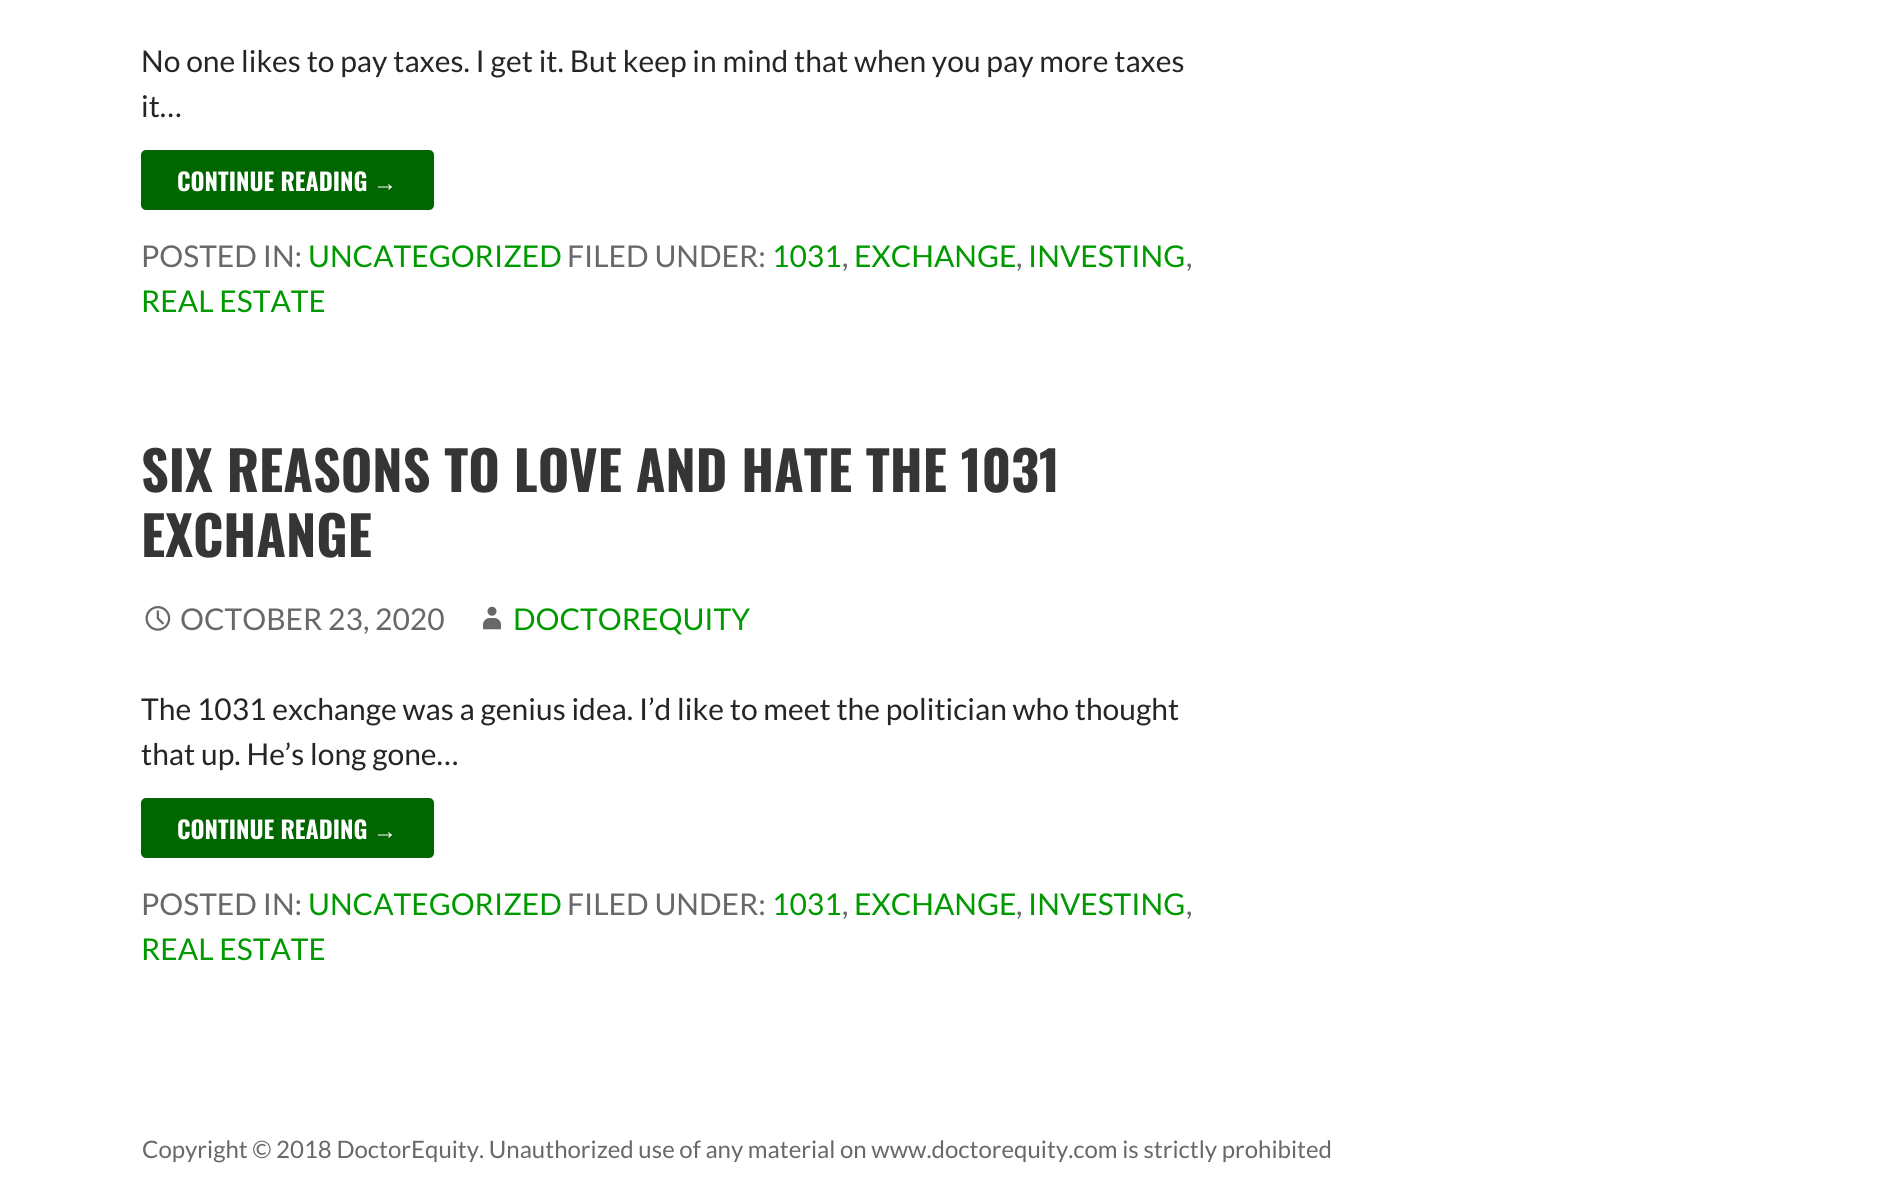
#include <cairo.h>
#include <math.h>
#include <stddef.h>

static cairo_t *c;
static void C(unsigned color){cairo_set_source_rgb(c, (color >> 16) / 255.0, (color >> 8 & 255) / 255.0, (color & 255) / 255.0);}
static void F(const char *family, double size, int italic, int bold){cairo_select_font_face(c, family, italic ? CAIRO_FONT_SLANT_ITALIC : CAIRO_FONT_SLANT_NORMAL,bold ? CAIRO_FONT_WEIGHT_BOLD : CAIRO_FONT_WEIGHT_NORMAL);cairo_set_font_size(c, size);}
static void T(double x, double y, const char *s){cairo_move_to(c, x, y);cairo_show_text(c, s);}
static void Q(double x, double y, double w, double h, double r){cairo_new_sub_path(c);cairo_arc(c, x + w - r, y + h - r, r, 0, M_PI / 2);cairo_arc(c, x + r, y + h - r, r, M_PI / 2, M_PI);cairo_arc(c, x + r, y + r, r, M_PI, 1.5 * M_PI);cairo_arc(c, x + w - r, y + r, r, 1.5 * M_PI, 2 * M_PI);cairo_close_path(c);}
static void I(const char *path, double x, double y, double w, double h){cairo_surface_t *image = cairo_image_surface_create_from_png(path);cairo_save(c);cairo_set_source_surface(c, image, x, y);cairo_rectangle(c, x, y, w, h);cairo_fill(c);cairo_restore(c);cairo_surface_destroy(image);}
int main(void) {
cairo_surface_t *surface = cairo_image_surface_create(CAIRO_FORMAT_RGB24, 1885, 1185);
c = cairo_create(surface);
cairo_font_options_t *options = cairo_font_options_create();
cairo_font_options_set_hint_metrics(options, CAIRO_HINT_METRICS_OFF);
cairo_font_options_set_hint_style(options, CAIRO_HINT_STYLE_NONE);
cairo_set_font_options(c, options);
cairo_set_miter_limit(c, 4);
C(0xffffff);
cairo_paint(c);
F("Lato",30,0,0);
C(0x252525);
T(141,72,"No one likes to pay taxes. I get it. But keep in mind that when you pay more taxes");
T(141,117,"it…");
C(0x006600);
Q(141,150,293,60,5);
cairo_fill(c);
F("Oswald",24,0,1);
C(0xffffff);
T(177,191,"CONTINUE READING");
F("Liberation Sans",24,0,1);
T(373,191,"→");
F("Lato",30,0,0);
C(0x686868);
T(141,267,"POSTED IN:");
C(0x009900);
T(308,267,"UNCATEGORIZED");
C(0x686868);
T(567,267,"FILED UNDER:");
C(0x009900);
T(772,267,"1031");
C(0x686868);
T(842,267,",");
C(0x009900);
T(854,267,"EXCHANGE");
C(0x686868);
T(1016,267,",");
C(0x009900);
T(1028,267,"INVESTING");
C(0x686868);
T(1186,267,",");
C(0x009900);
T(141,312,"REAL ESTATE");
F("Oswald",54,0,1);
C(0x353535);
T(141,492,"SIX REASONS TO LOVE AND HATE THE 1031");
T(141,557,"EXCHANGE");
I("1.png",145,606,26,25);
F("Lato",30,0,0);
C(0x686868);
T(180,630,"OCTOBER 23, 2020");
I("2.png",483,606,18,24);
C(0x009900);
T(513,630,"DOCTOREQUITY");
C(0x252525);
T(141,720,"The 1031 exchange was a genius idea. I’d like to meet the politician who thought");
T(141,765,"that up. He’s long gone…");
C(0x006600);
Q(141,798,293,60,5);
cairo_fill(c);
F("Oswald",24,0,1);
C(0xffffff);
T(177,839,"CONTINUE READING");
F("Liberation Sans",24,0,1);
T(373,839,"→");
F("Lato",30,0,0);
C(0x686868);
T(141,915,"POSTED IN:");
C(0x009900);
T(308,915,"UNCATEGORIZED");
C(0x686868);
T(567,915,"FILED UNDER:");
C(0x009900);
T(772,915,"1031");
C(0x686868);
T(842,915,",");
C(0x009900);
T(854,915,"EXCHANGE");
C(0x686868);
T(1016,915,",");
C(0x009900);
T(1028,915,"INVESTING");
C(0x686868);
T(1186,915,",");
C(0x009900);
T(141,960,"REAL ESTATE");
F("Lato",24,0,0);
C(0x686868);
T(142,1158,"Copyright © 2018 DoctorEquity. Unauthorized use of any material on www.doctorequity.com is strictly prohibited");
cairo_surface_write_to_png(surface, "o.png");
cairo_font_options_destroy(options);
cairo_destroy(c);
cairo_surface_destroy(surface);
return 0;
}
